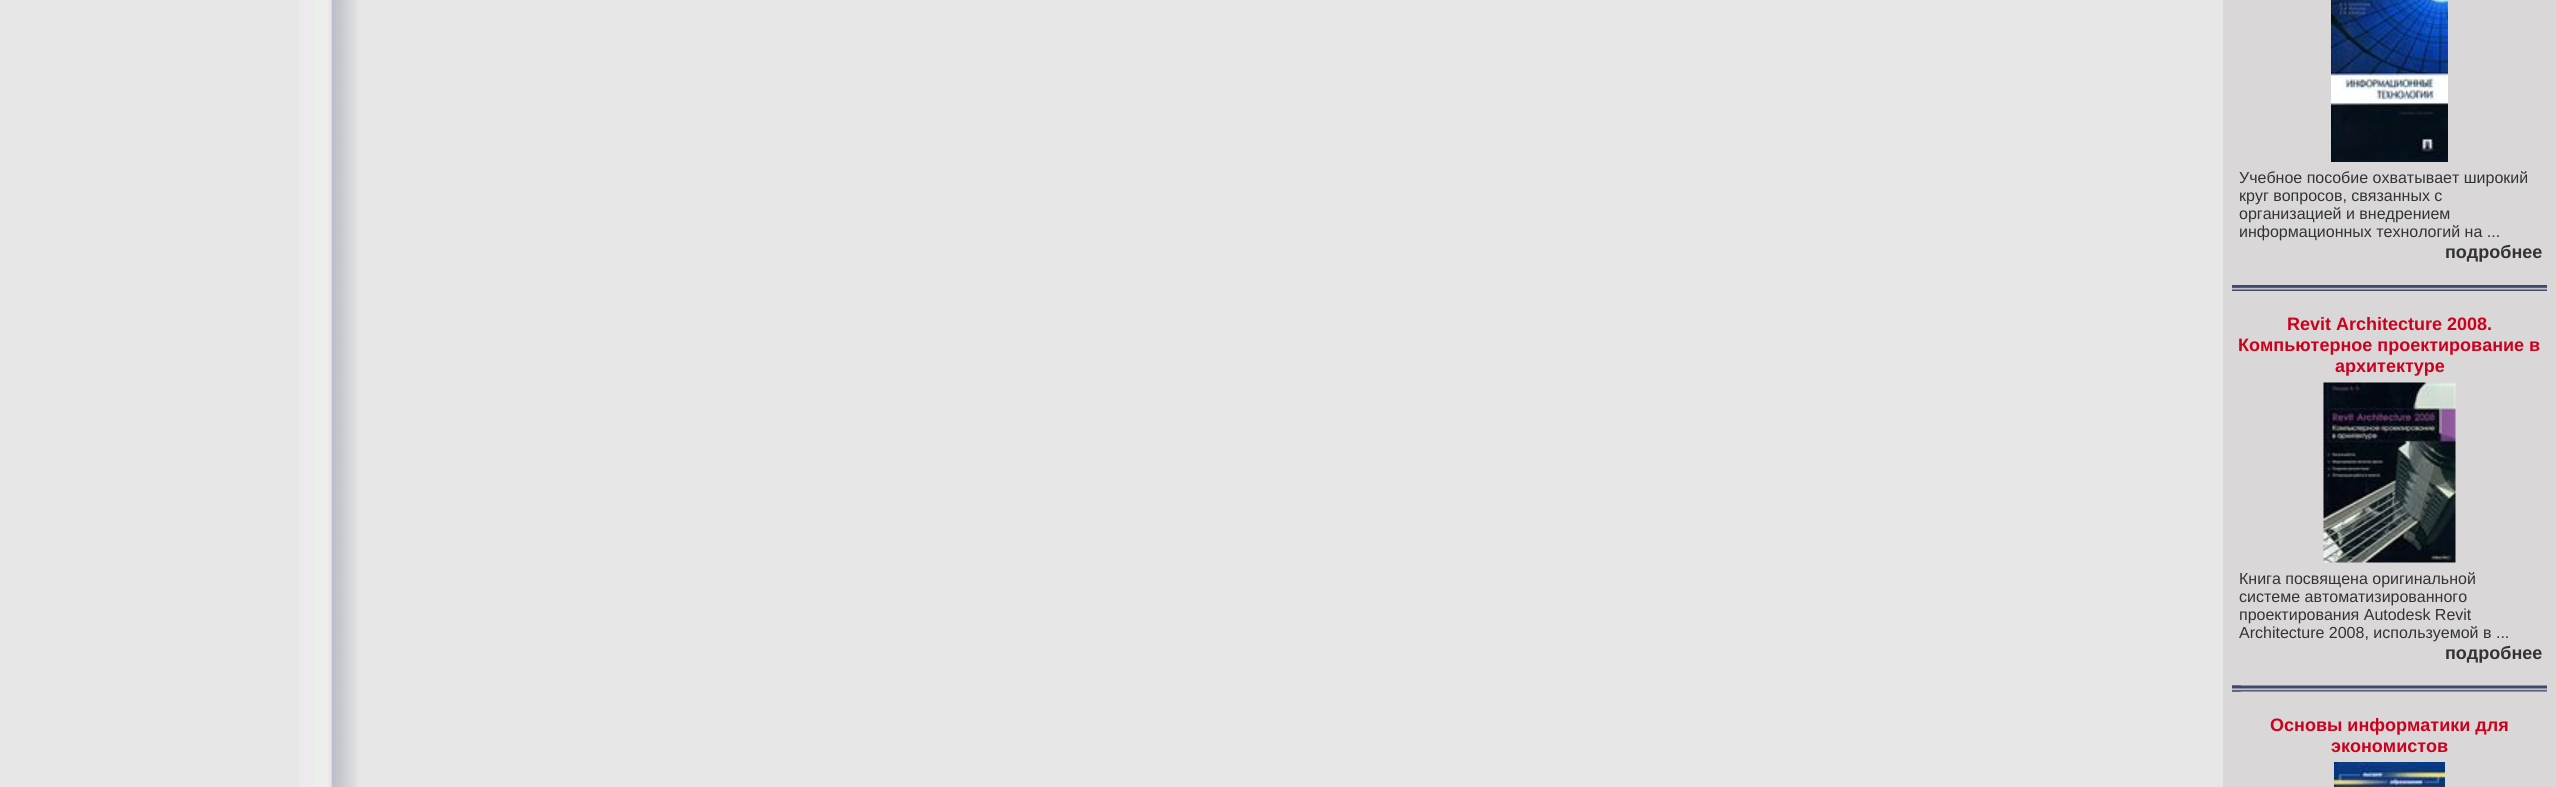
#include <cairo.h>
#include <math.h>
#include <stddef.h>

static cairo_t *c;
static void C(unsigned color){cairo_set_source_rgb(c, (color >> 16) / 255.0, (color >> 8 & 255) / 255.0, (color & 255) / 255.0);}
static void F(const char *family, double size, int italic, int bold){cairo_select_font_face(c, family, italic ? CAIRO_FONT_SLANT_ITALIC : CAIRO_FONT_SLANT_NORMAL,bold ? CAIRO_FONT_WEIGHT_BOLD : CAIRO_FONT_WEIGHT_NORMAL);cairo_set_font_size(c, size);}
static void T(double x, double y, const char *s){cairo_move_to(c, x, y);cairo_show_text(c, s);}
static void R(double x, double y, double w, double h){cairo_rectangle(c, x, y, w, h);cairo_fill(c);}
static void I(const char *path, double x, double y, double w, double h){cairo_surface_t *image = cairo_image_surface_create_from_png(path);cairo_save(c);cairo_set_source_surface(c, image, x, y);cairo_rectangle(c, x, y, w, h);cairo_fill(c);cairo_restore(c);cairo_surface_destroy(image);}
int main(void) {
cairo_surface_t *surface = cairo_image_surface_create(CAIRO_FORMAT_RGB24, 2556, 787);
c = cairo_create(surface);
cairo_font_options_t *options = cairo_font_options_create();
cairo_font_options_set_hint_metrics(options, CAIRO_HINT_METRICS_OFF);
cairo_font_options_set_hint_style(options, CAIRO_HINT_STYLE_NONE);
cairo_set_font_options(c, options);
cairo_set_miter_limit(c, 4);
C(0xe8e7e7);
cairo_paint(c);
I("1.png",299,0,60,787);
C(0xd9d7d7);
R(2223,0,333,787);
I("2.png",2331,0,117,162);
F("Liberation Sans",16,0,0);
C(0x333333);
T(2239,183,"Учебное пособие охватывает широкий");
T(2239,201,"круг вопросов, связанных с");
T(2239,219,"организацией и внедрением");
T(2239,237,"информационных технологий на ...");
F("Liberation Sans",18,0,1);
T(2445,258,"подробнее");
I("3.png",2232,285,315,6);
C(0x535a76);
R(2232,287,9,1);
C(0xcc011e);
T(2287,330,"Revit Architecture 2008.");
T(2238,351,"Компьютерное проектирование в");
T(2335,372,"архитектуре");
I("4.png",2323,382,133,181);
F("Liberation Sans",16,0,0);
C(0x333333);
T(2239,584,"Книга посвящена оригинальной");
T(2239,602,"системе автоматизированного");
T(2239,620,"проектирования Autodesk Revit");
T(2239,638,"Architecture 2008, используемой в ...");
F("Liberation Sans",18,0,1);
T(2445,659,"подробнее");
I("5.png",2232,685,315,7);
I("6.png",2232,685,9,7);
C(0xcc011e);
T(2270,731,"Основы информатики для");
T(2331,752,"экономистов");
I("7.png",2334,762,111,25);
cairo_surface_write_to_png(surface, "o.png");
cairo_font_options_destroy(options);
cairo_destroy(c);
cairo_surface_destroy(surface);
return 0;
}
